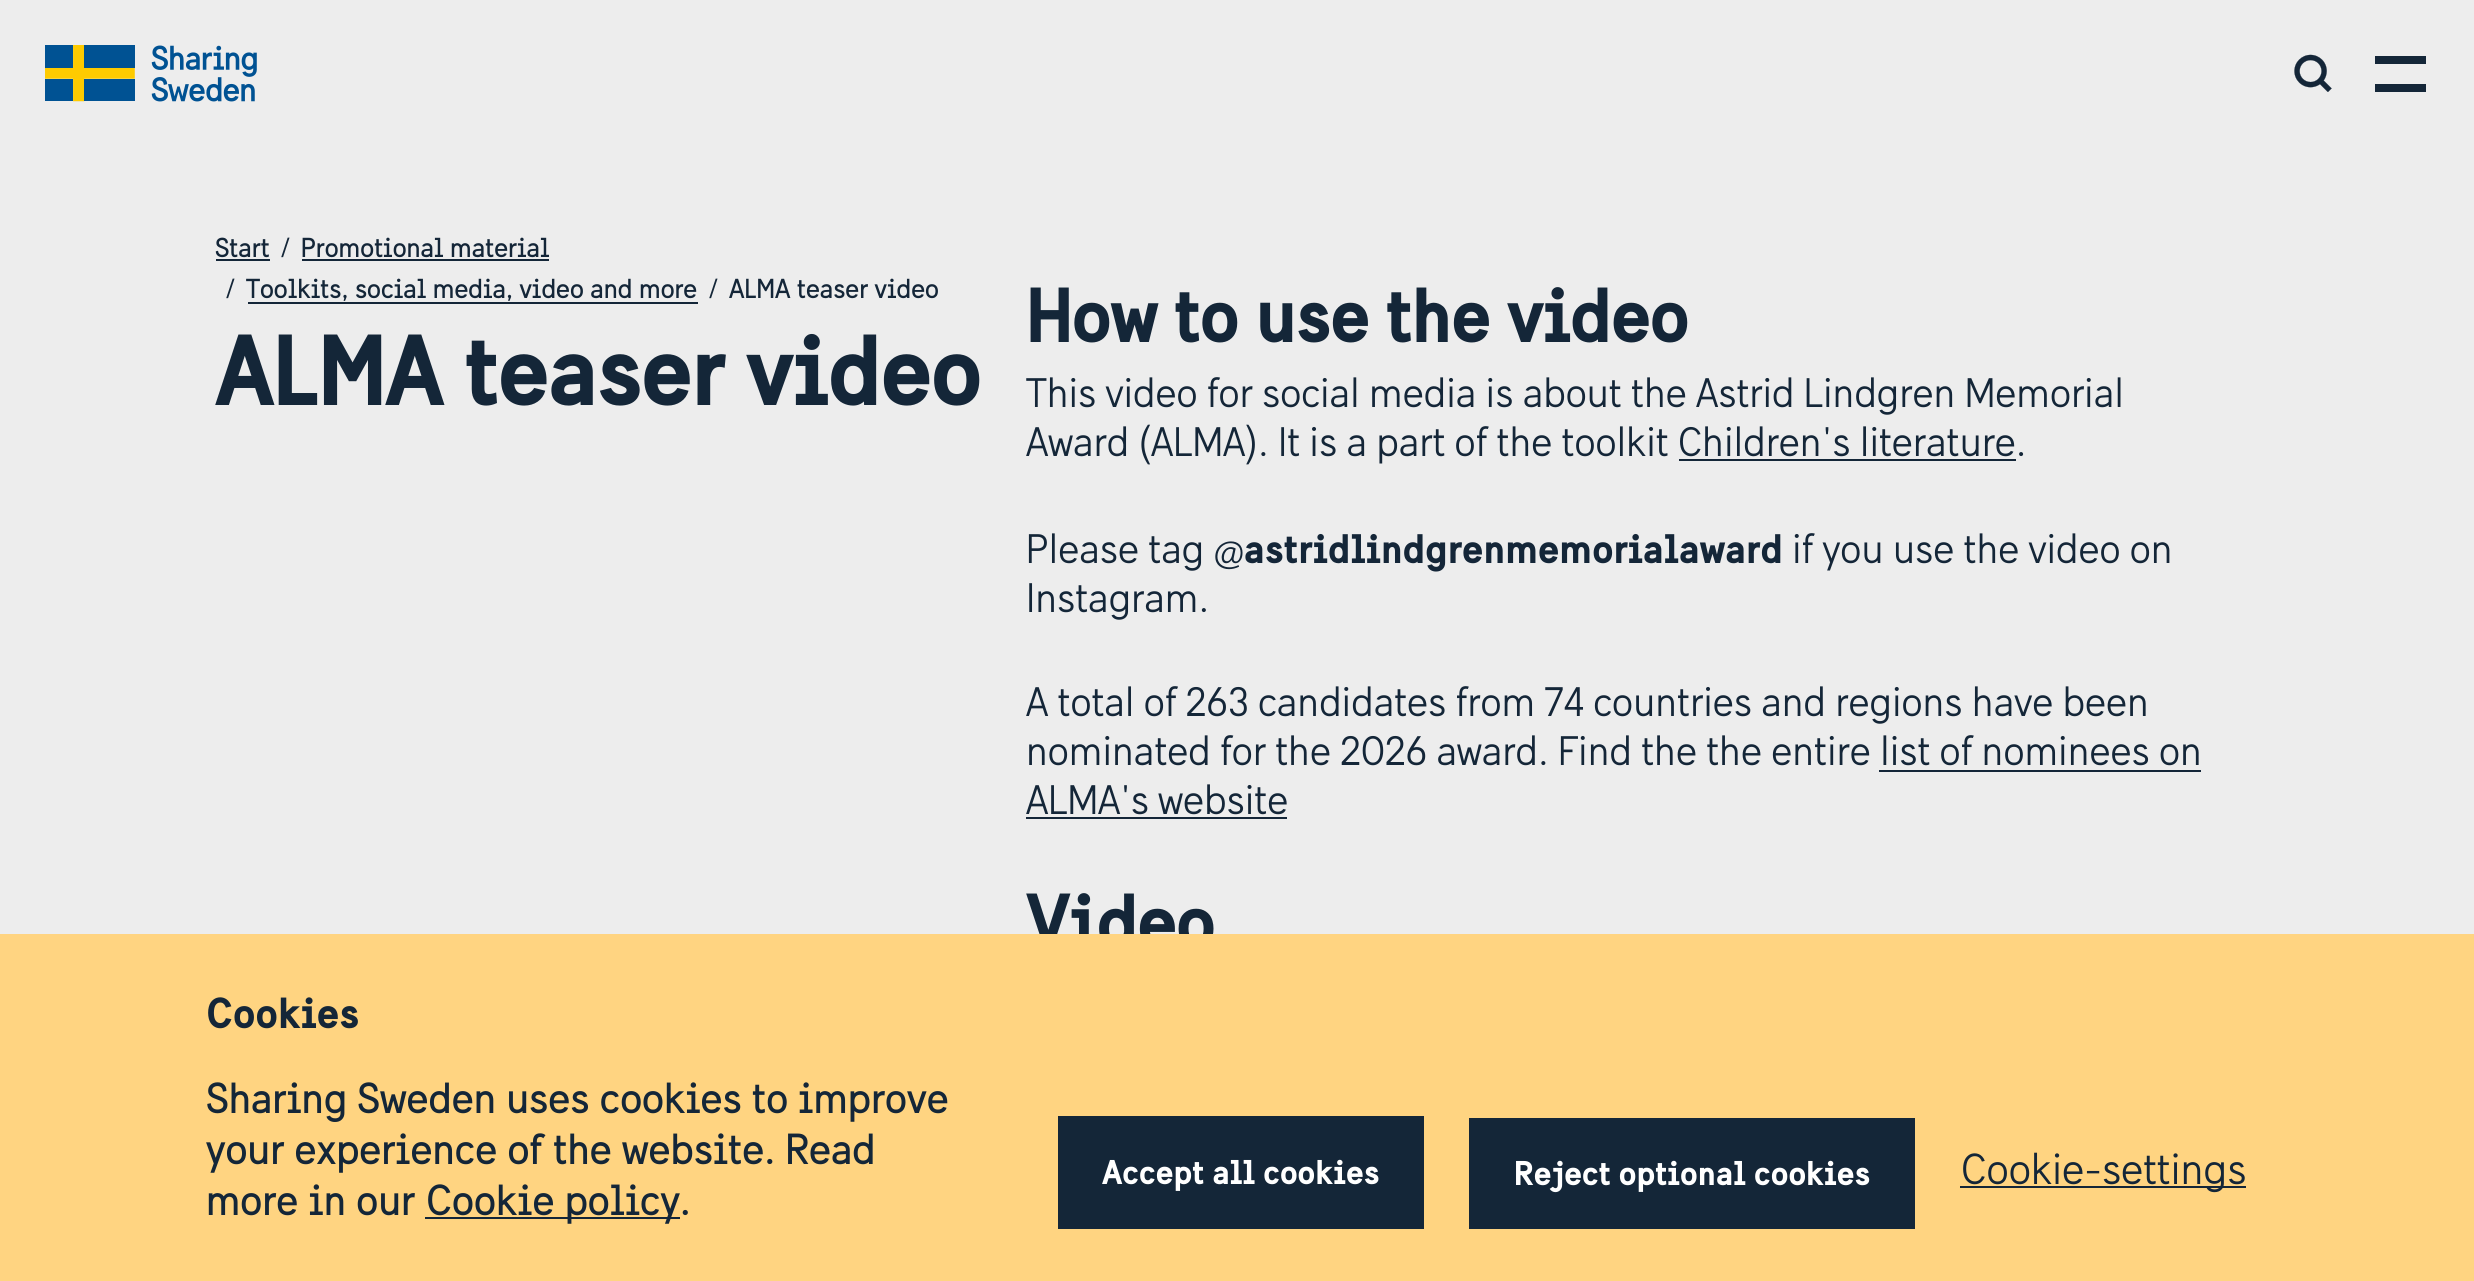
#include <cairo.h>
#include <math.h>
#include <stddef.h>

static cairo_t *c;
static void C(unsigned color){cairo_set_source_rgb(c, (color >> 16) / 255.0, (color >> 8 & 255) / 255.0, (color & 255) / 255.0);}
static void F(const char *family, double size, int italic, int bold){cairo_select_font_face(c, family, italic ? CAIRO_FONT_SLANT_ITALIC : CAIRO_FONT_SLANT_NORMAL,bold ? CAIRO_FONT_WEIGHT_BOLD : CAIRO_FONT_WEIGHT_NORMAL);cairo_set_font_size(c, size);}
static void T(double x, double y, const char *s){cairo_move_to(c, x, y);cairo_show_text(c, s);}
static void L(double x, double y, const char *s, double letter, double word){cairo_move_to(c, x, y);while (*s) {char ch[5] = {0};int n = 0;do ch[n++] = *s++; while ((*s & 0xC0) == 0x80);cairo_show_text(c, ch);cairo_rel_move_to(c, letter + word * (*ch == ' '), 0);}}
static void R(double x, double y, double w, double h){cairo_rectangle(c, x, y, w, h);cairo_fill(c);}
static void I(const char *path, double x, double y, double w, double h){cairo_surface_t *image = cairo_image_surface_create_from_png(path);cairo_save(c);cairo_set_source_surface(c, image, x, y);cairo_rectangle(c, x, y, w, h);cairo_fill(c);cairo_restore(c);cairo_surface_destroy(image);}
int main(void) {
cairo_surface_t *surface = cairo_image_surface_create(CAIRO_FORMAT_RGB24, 2474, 1281);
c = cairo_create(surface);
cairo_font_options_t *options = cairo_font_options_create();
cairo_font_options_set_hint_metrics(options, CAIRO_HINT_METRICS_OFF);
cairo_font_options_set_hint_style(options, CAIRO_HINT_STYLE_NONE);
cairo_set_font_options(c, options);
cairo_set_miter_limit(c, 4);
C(0xededed);
cairo_paint(c);
I("1.png",45,45,212,57);
I("2.png",2294,54,38,38);
C(0x142638);
R(2375,56,51,8);
R(2375,84,51,8);
F("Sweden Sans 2",27,0,0);
T(215,257,"Start");
R(216,259,54,2);
T(281,257,"/");
T(301,257,"Promotional material");
R(302,259,247,2);
T(226,298,"/");
T(246,298,"Toolkits, social media, video and more");
R(248,302,450,2);
T(709,298,"/");
T(729,298,"ALMA teaser video");
F("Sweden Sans",99,0,1);
L(215,405,"ALMA teaser video",-2,0);
F("Sweden Sans",76.5,0,1);
L(1026,342,"How to use the video",-1.5,0);
F("Sweden Sans",40.5,0,0);
T(1026,407,"This video for social media is about the Astrid Lindgren Memorial");
T(1026,456,"Award (ALMA). It is a part of the toolkit Children's literature.");
R(1679,459,337,2);
T(1026,563,"Please tag @");
F("Sweden Sans",40.5,0,1);
T(1244,563,"astridlindgrenmemorialaward");
F("Sweden Sans",40.5,0,0);
T(1792,563,"if you use the video on");
T(1026,612,"Instagram.");
T(1026,716,"A total of 263 candidates from 74 countries and regions have been");
T(1026,765,"nominated for the 2026 award. Find the the entire list of nominees on");
T(1026,814,"ALMA's website");
R(1879,770,322,2);
R(1026,817,261,2);
F("Sweden Sans",76.5,0,1);
L(1026,948,"Video",-1.5,0);
C(0xffd481);
R(0,934,2474,347);
F("Sweden Sans",42.75,0,1);
C(0x142638);
T(206,1028,"Cookies");
F("Sweden Sans 2",42.75,0,0);
T(206,1113,"Sharing Sweden uses cookies to improve");
T(206,1164,"your experience of the website. Read");
T(206,1215,"more in our");
R(425,1217,255,2);
T(426,1215,"Cookie policy.");
R(1058,1116,366,113);
F("Sweden Sans",33.75,0,1);
C(0xffffff);
T(1102,1184,"Accept all cookies");
C(0x142638);
R(1469,1118,446,111);
C(0xffffff);
T(1514,1185,"Reject optional cookies");
C(0x142638);
R(1960,1186,286,2);
F("Sweden Sans",42.75,0,0);
T(1961,1184,"Cookie-settings");
cairo_surface_write_to_png(surface, "o.png");
cairo_font_options_destroy(options);
cairo_destroy(c);
cairo_surface_destroy(surface);
return 0;
}
